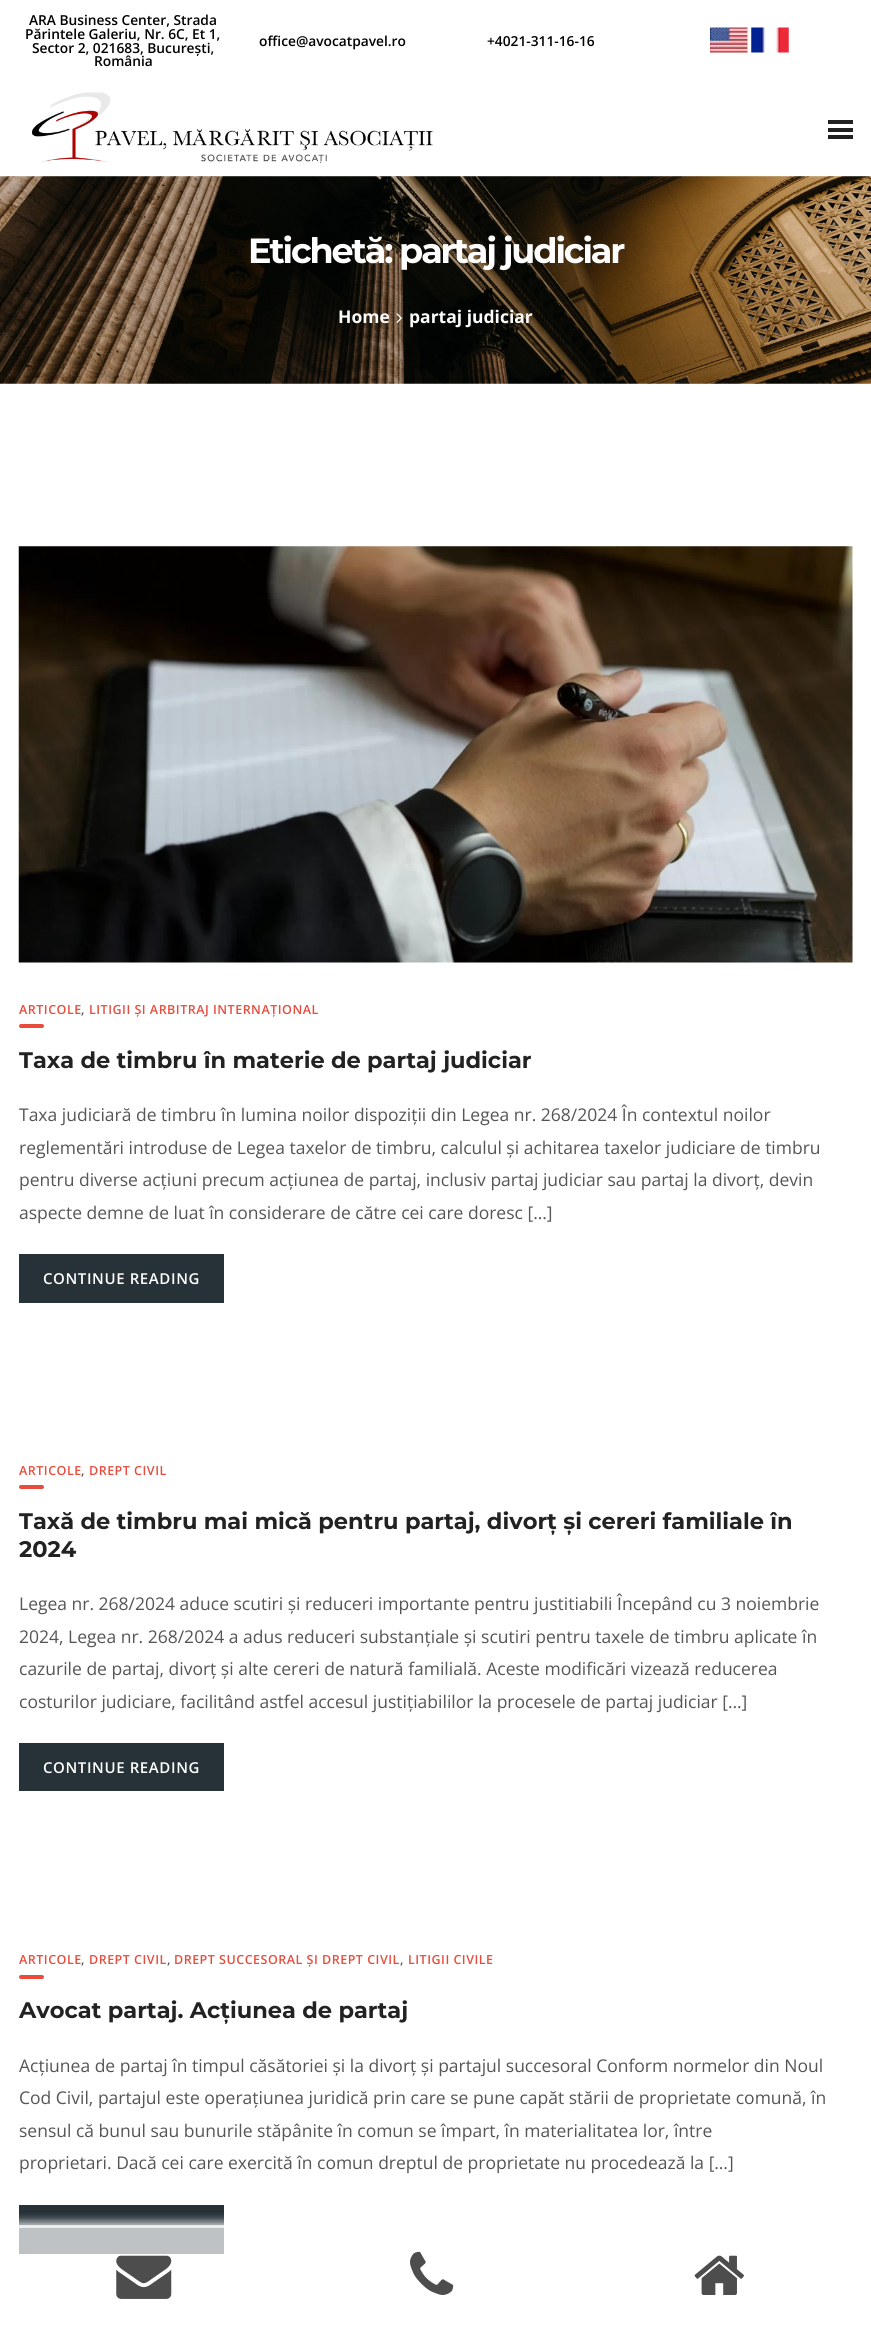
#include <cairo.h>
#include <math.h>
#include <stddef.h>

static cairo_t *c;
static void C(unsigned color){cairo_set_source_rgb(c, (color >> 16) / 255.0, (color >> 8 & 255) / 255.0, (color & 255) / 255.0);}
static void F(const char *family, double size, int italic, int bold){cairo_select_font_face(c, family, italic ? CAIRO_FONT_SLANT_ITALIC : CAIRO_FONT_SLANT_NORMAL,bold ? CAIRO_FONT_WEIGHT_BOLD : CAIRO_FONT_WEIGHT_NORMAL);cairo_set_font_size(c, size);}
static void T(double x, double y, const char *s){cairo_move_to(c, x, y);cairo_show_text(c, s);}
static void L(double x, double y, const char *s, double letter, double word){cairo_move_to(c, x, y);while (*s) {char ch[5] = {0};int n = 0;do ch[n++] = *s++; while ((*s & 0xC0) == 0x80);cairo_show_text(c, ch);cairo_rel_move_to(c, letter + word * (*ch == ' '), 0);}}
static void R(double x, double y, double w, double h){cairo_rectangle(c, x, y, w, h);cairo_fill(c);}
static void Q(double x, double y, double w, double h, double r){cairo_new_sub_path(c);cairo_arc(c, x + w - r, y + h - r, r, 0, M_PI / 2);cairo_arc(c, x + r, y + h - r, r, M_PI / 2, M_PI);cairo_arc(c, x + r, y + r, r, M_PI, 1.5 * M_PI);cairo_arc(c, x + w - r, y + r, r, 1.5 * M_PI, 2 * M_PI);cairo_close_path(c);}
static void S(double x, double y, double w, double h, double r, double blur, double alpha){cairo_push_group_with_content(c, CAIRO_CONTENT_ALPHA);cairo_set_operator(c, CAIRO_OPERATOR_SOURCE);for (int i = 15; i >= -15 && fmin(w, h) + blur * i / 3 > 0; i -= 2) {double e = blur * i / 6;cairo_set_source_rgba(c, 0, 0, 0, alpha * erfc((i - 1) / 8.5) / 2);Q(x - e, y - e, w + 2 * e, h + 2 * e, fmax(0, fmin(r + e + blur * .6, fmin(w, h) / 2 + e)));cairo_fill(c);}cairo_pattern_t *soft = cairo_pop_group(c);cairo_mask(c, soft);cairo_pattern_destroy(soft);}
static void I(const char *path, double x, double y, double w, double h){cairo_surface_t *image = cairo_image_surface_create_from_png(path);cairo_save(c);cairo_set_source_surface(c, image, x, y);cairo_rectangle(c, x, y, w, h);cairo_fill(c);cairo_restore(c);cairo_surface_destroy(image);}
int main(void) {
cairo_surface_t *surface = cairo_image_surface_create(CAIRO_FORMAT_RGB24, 871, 2325);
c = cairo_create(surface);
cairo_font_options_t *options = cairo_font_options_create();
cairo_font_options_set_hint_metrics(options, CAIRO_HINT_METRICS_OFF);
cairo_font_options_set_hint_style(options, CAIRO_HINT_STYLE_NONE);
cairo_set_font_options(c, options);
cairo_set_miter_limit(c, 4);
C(0xffffff);
cairo_paint(c);
cairo_save(c);
cairo_rectangle(c,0,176,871,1);
cairo_clip(c);
C(0x000000);
S(0,1,871,177,0,2,.11);
cairo_restore(c);
F("Open Sans SemiBold",13.75,0,0);
C(0x000000);
T(29,25,"ARA Business Center, Strada");
T(25,39,"Părintele Galeriu, Nr. 6C, Et 1,");
T(32,53,"Sector 2, 021683, București,");
T(94,66,"România");
T(259,46,"office@avocatpavel.ro");
T(487,46,"+4021-311-16-16");
I("1.png",710,27,38,26);
I("2.png",751,27,38,26);
I("3.png",32,92,401,71);
C(0x212121);
R(828,120,25,4);
R(828,128,25,4);
R(828,135,25,4);
I("4.png",0,176,871,208);
F("Montserrat",35,0,1);
C(0xffffff);
L(248,263,"Etichetă: partaj judiciar",-2.1,0);
F("Open Sans",17.5,0,1);
T(338,323,"Home");
I("5.png",396,313,6,10);
T(409,323,"partaj judiciar");
I("6.png",18,546,835,417);
F("Open Sans SemiBold",12.5,0,0);
C(0xe74c3c);
L(19,1014,"ARTICOLE",.5,0);
C(0x555555);
L(81,1014,",",.5,0);
C(0xe74c3c);
L(89,1014,"LITIGII ȘI ARBITRAJ INTERNAȚIONAL",.5,0);
Q(19,1024,25,4,2);
cairo_fill(c);
F("Montserrat",22.5,0,1);
C(0x222222);
T(19,1068,"Taxa de timbru în materie de partaj judiciar");
F("Open Sans",17.5,0,0);
C(0x555555);
T(19,1121,"Taxa judiciară de timbru în lumina noilor dispoziții din Legea nr. 268/2024 În contextul noilor");
T(19,1154,"reglementări introduse de Legea taxelor de timbru, calculul și achitarea taxelor judiciare de timbru");
T(19,1186,"pentru diverse acțiuni precum acțiunea de partaj, inclusiv partaj judiciar sau partaj la divorț, devin");
T(19,1219,"aspecte demne de luat în considerare de către cei care doresc […]");
C(0x263238);
R(19,1254,205,49);
F("Open Sans SemiBold",15,0,0);
C(0xffffff);
L(43,1284,"CONTINUE READING",.6,0);
F("Open Sans SemiBold",12.5,0,0);
C(0xe74c3c);
L(19,1475,"ARTICOLE",.5,0);
C(0x555555);
L(81,1475,",",.5,0);
C(0xe74c3c);
L(89,1475,"DREPT CIVIL",.5,0);
Q(19,1485,25,4,2);
cairo_fill(c);
F("Montserrat",22.5,0,1);
C(0x222222);
T(19,1529,"Taxă de timbru mai mică pentru partaj, divorț și cereri familiale în");
T(19,1557,"2024");
F("Open Sans",17.5,0,0);
C(0x555555);
T(19,1610,"Legea nr. 268/2024 aduce scutiri și reduceri importante pentru justitiabili Începând cu 3 noiembrie");
T(19,1643,"2024, Legea nr. 268/2024 a adus reduceri substanțiale și scutiri pentru taxele de timbru aplicate în");
T(19,1675,"cazurile de partaj, divorț și alte cereri de natură familială. Aceste modificări vizează reducerea");
T(19,1708,"costurilor judiciare, facilitând astfel accesul justițiabililor la procesele de partaj judiciar […]");
C(0x263238);
R(19,1743,205,48);
F("Open Sans SemiBold",15,0,0);
C(0xffffff);
L(43,1773,"CONTINUE READING",.6,0);
F("Open Sans SemiBold",12.5,0,0);
C(0xe74c3c);
L(19,1964,"ARTICOLE",.5,0);
C(0x555555);
L(81,1964,",",.5,0);
C(0xe74c3c);
L(89,1964,"DREPT CIVIL",.5,0);
C(0x555555);
L(167,1964,",",.5,0);
C(0xe74c3c);
L(174,1964,"DREPT SUCCESORAL ȘI DREPT CIVIL",.5,0);
C(0x555555);
L(400,1964,",",.5,0);
C(0xe74c3c);
L(408,1964,"LITIGII CIVILE",.5,0);
Q(19,1975,25,4,2);
cairo_fill(c);
F("Montserrat",22.5,0,1);
C(0x222222);
T(19,2018,"Avocat partaj. Acțiunea de partaj");
F("Open Sans",17.5,0,0);
C(0x555555);
T(19,2072,"Acțiunea de partaj în timpul căsătoriei și la divorț și partajul succesoral Conform normelor din Noul");
T(19,2104,"Cod Civil, partajul este operațiunea juridică prin care se pune capăt stării de proprietate comună, în");
T(19,2137,"sensul că bunul sau bunurile stăpânite în comun se împart, în materialitatea lor, între");
T(19,2169,"proprietari. Dacă cei care exercită în comun dreptul de proprietate nu procedează la […]");
C(0x263238);
R(19,2205,205,49);
cairo_save(c);
cairo_rectangle(c,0,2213,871,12);
cairo_clip(c);
C(0xffffff);
S(3,2221,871,100,0,4,.7);
cairo_restore(c);
cairo_set_source_rgba(c,1,1,1,0.7);
R(19,2225,205,29);
R(19,2225,205,3);
I("7.png",116,2255,56,44);
I("8.png",410,2251,44,44);
I("9.png",694,2255,50,40);
cairo_surface_write_to_png(surface, "o.png");
cairo_font_options_destroy(options);
cairo_destroy(c);
cairo_surface_destroy(surface);
return 0;
}
